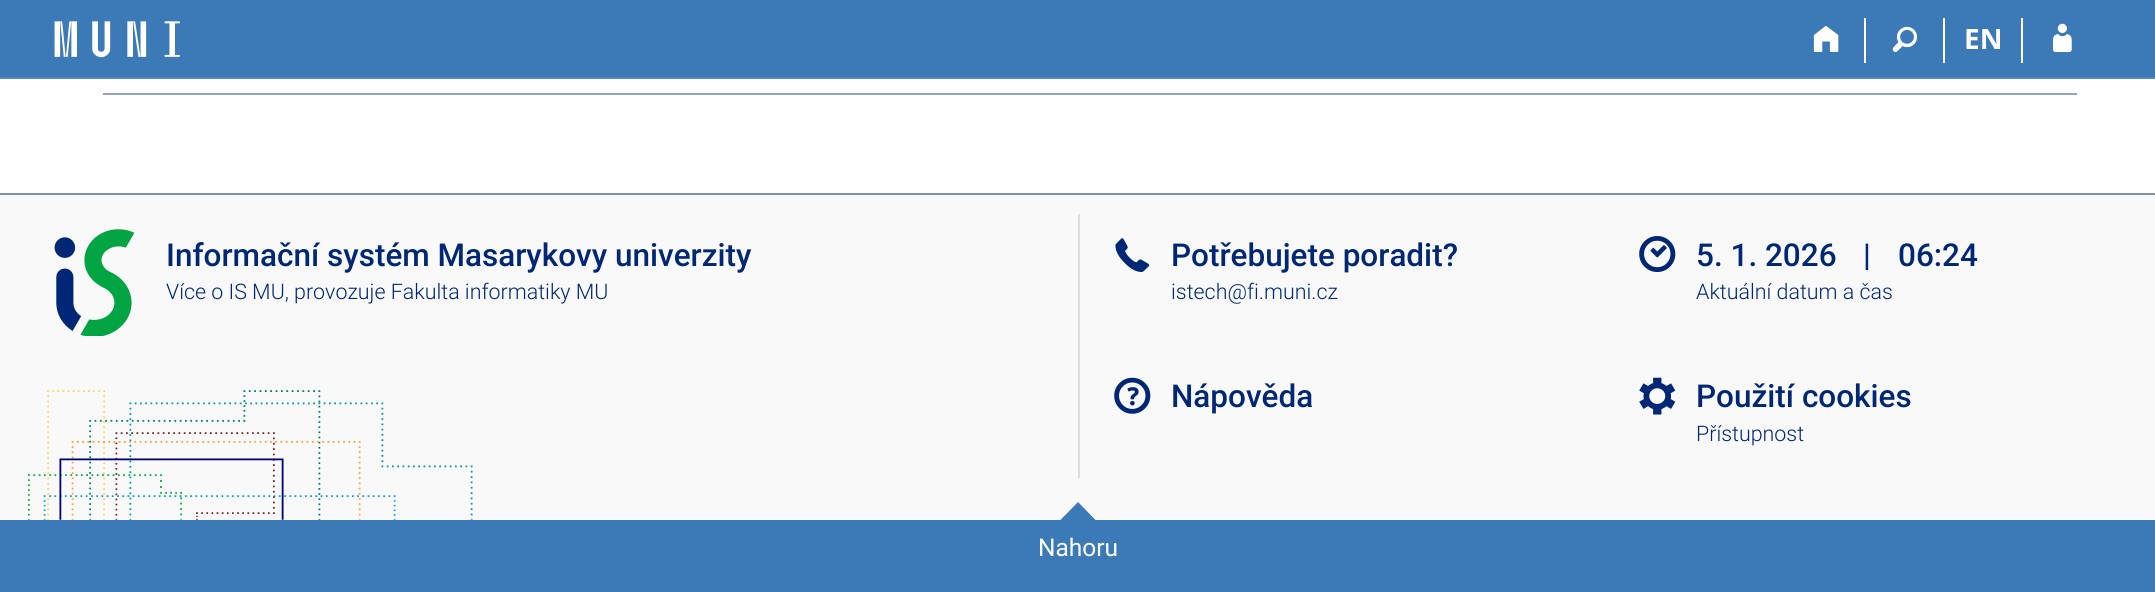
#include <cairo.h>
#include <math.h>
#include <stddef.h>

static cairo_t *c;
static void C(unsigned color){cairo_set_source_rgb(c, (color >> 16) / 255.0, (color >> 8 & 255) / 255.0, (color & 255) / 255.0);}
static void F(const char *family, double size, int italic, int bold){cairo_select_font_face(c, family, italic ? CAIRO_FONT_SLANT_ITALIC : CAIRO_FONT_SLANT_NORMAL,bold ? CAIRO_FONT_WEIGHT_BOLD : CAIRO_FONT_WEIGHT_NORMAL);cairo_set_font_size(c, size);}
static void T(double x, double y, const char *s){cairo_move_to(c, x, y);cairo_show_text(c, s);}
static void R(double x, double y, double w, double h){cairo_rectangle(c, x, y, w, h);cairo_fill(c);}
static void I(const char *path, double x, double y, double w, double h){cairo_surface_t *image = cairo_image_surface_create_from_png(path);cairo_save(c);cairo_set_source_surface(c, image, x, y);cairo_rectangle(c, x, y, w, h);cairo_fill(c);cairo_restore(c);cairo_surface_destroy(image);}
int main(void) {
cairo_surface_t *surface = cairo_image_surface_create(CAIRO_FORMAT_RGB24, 2155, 592);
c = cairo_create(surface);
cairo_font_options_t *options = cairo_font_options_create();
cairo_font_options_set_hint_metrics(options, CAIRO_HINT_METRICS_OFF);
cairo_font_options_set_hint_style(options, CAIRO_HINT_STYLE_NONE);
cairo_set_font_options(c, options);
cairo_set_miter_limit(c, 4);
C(0xffffff);
cairo_paint(c);
C(0x3c7ab7);
R(0,0,2155,77);
C(0x5c88b6);
R(0,77,2155,2);
I("1.png",54,21,126,37);
C(0xffffff);
R(1864,18,2,45);
I("2.png",1813,26,26,26);
R(1943,18,2,45);
I("3.png",1892,26,25,26);
R(2021,18,2,45);
F("Open Sans",28,0,1);
T(1964,49,"EN");
I("4.png",2053,23,19,29);
C(0x93a3c5);
R(103,93,1974,2);
C(0xf9f9f9);
R(0,195,2155,325);
C(0x7d90b8);
R(0,193,2155,2);
I("5.png",28,390,445,130);
I("6.png",54,229,81,107);
F("Roboto Medium",31.5,0,0);
C(0x002776);
T(166,266,"Informační systém Masarykovy univerzity");
F("Roboto Light",21.4,0,0);
T(166,299,"Více o IS MU, provozuje Fakulta informatiky MU");
C(0xdddddd);
R(1078,214,2,264);
I("7.png",1115,238,35,34);
F("Roboto Medium",31.5,0,0);
C(0x002776);
T(1171,266,"Potřebujete poradit?");
F("Roboto Light",21.4,0,0);
T(1171,299,"istech@fi.muni.cz");
I("8.png",1114,377,37,37);
F("Roboto Medium",31.5,0,0);
T(1171,407,"Nápověda");
I("9.png",1639,236,37,36);
T(1696,266,"5. 1. 2026");
T(1863,266,"|");
T(1898,266,"06:24");
F("Roboto Light",21.4,0,0);
T(1696,299,"Aktuální datum a čas");
I("10.png",1639,377,37,38);
F("Roboto Medium",31.5,0,0);
T(1696,407,"Použití cookies");
F("Roboto Light",21.4,0,0);
T(1696,441,"Přístupnost");
C(0x3c7ab7);
R(0,520,2155,72);
cairo_new_path(c);
cairo_move_to(c,1097,521.5);
cairo_line_to(c,1059,521.5);
cairo_line_to(c,1078,502);
cairo_close_path(c);
cairo_fill(c);
F("Roboto",24.5,0,0);
C(0xffffff);
T(1038,556,"Nahoru");
cairo_surface_write_to_png(surface, "o.png");
cairo_font_options_destroy(options);
cairo_destroy(c);
cairo_surface_destroy(surface);
return 0;
}
